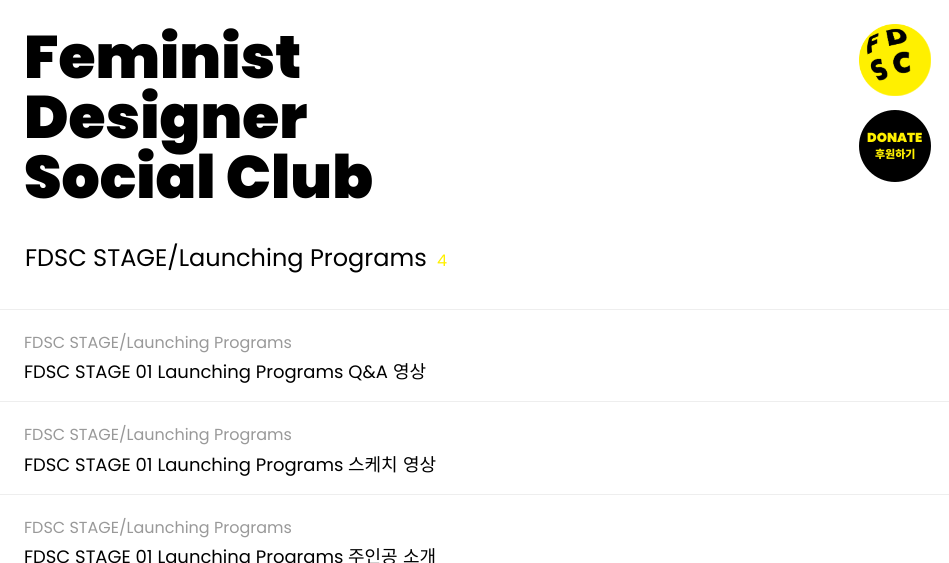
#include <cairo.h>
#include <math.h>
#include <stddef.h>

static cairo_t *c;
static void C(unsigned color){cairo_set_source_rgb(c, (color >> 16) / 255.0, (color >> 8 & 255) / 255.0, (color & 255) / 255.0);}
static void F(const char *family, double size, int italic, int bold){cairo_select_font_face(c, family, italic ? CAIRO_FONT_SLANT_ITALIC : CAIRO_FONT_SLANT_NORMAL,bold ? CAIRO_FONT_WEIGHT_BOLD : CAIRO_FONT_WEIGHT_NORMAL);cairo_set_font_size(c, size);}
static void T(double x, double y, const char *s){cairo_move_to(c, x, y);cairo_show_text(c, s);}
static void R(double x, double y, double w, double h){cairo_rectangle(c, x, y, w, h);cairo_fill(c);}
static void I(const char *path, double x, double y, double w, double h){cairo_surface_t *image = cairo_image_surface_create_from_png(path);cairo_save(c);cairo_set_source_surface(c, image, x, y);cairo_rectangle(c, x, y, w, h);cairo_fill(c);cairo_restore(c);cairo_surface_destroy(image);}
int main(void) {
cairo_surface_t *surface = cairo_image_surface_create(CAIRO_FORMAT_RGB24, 949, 563);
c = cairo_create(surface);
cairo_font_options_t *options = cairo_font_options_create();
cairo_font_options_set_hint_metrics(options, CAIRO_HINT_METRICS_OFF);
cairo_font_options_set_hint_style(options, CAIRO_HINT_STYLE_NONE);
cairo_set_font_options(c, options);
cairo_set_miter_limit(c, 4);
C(0xffffff);
cairo_paint(c);
F("Poppins Black",60,0,0);
C(0x000000);
T(24,78,"Feminist");
T(24,138,"Designer");
T(24,198,"Social Club");
I("1.png",859,24,72,72);
cairo_arc(c,895,146,36,0,2 * M_PI);
cairo_fill(c);
F("Poppins Black",13,0,0);
C(0xfff000);
T(867,142,"DONATE");
F("Noto Sans KR Black",11,0,0);
T(875,158,"후원하기");
F("Poppins",24,0,0);
C(0x000000);
T(25,266,"FDSC STAGE/Launching Programs");
F("Poppins",16,0,0);
C(0xfff000);
T(437,266,"4");
C(0xeeeeee);
R(0,309,949,1);
C(0x999999);
T(24,348,"FDSC STAGE/Launching Programs");
F("Poppins",18,0,0);
C(0x000000);
T(24,378,"FDSC STAGE 01 Launching Programs Q&A");
F("Noto Sans KR",18,0,0);
T(393,378,"영상");
C(0xeeeeee);
R(0,401,949,1);
F("Poppins",16,0,0);
C(0x999999);
T(24,440,"FDSC STAGE/Launching Programs");
F("Poppins",18,0,0);
C(0x000000);
T(24,471,"FDSC STAGE 01 Launching Programs");
F("Noto Sans KR",18,0,0);
T(348,471,"스케치");
T(403,471,"영상");
C(0xeeeeee);
R(0,494,949,1);
F("Poppins",16,0,0);
C(0x999999);
T(24,533,"FDSC STAGE/Launching Programs");
F("Poppins",18,0,0);
C(0x000000);
T(24,563,"FDSC STAGE 01 Launching Programs");
F("Noto Sans KR",18,0,0);
T(348,563,"주인공");
T(403,563,"소개");
cairo_surface_write_to_png(surface, "o.png");
cairo_font_options_destroy(options);
cairo_destroy(c);
cairo_surface_destroy(surface);
return 0;
}
